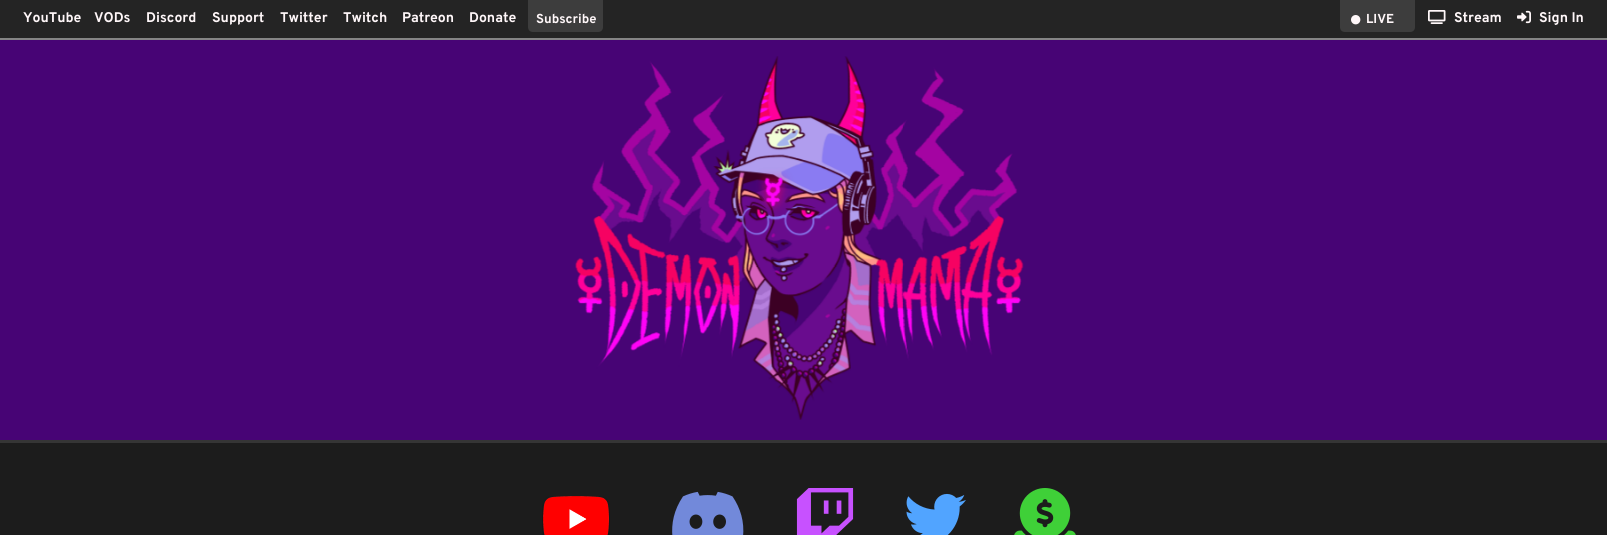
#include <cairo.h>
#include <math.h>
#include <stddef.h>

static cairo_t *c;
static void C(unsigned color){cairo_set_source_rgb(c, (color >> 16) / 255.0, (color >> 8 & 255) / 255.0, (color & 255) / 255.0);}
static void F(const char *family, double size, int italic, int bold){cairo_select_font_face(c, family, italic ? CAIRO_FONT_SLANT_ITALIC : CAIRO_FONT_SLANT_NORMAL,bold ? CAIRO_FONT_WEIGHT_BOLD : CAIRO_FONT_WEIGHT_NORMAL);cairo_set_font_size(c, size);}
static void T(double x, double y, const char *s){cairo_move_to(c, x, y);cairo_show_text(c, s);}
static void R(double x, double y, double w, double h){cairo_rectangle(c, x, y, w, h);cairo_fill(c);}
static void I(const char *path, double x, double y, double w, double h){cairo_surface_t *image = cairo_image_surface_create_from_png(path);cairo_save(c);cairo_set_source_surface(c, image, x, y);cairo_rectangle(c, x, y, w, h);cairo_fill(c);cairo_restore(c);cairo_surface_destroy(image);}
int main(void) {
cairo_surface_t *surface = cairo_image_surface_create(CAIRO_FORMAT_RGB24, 1607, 535);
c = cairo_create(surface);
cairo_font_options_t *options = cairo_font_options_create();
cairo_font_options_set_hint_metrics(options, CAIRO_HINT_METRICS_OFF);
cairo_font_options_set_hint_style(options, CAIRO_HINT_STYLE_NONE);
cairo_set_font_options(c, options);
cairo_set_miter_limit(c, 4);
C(0x1c1c1c);
cairo_paint(c);
C(0x242424);
R(0,0,1607,38);
C(0x858585);
R(0,38,1607,2);
F("Overpass",14,0,1);
C(0xfff7f9);
T(23,22,"YouTube");
T(94,22,"VODs");
T(146,22,"Discord");
T(212,22,"Support");
T(280,22,"Twitter");
T(343,22,"Twitch");
T(402,22,"Patreon");
T(469,22,"Donate");
C(0x3d3d3d);
cairo_new_path(c);
cairo_move_to(c,528,0);
cairo_line_to(c,603,0);
cairo_line_to(c,603,27);
cairo_curve_to(c,603,30,601,32,598,32);
cairo_line_to(c,533,32);
cairo_curve_to(c,530,32,528,30,528,27);
cairo_close_path(c);
cairo_fill(c);
F("Overpass",13,0,1);
C(0xfff7f9);
T(536,23,"Subscribe");
C(0x3d3d3d);
cairo_new_path(c);
cairo_move_to(c,1340,0);
cairo_line_to(c,1415,0);
cairo_line_to(c,1415,27);
cairo_curve_to(c,1415,30,1413,32,1410,32);
cairo_line_to(c,1345,32);
cairo_curve_to(c,1342,32,1340,30,1340,27);
cairo_close_path(c);
cairo_fill(c);
I("1.png",1351,15,10,10);
C(0xfff7f9);
T(1366,23,"LIVE");
I("2.png",1428,10,18,14);
F("Overpass",14,0,1);
T(1454,22,"Stream");
I("3.png",1517,10,14,14);
T(1539,22,"Sign In");
C(0x353535);
R(0,440,1607,3);
C(0x470475);
R(0,40,1607,400);
I("4.png",575,56,449,364);
I("5.png",542,496,68,39);
I("6.png",672,491,72,44);
I("7.png",796,488,58,47);
I("8.png",906,493,60,42);
I("9.png",1014,488,62,47);
cairo_surface_write_to_png(surface, "o.png");
cairo_font_options_destroy(options);
cairo_destroy(c);
cairo_surface_destroy(surface);
return 0;
}
